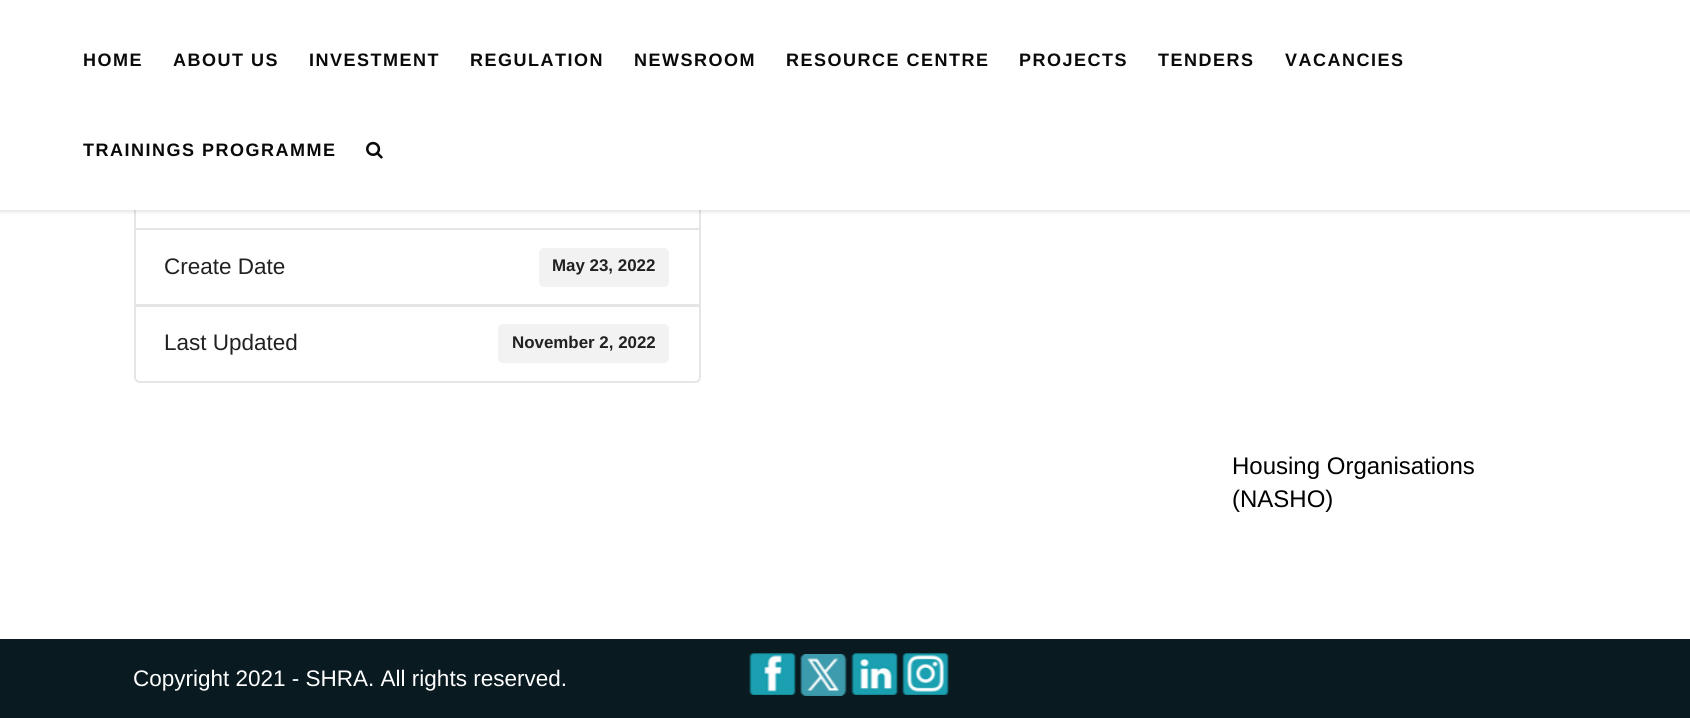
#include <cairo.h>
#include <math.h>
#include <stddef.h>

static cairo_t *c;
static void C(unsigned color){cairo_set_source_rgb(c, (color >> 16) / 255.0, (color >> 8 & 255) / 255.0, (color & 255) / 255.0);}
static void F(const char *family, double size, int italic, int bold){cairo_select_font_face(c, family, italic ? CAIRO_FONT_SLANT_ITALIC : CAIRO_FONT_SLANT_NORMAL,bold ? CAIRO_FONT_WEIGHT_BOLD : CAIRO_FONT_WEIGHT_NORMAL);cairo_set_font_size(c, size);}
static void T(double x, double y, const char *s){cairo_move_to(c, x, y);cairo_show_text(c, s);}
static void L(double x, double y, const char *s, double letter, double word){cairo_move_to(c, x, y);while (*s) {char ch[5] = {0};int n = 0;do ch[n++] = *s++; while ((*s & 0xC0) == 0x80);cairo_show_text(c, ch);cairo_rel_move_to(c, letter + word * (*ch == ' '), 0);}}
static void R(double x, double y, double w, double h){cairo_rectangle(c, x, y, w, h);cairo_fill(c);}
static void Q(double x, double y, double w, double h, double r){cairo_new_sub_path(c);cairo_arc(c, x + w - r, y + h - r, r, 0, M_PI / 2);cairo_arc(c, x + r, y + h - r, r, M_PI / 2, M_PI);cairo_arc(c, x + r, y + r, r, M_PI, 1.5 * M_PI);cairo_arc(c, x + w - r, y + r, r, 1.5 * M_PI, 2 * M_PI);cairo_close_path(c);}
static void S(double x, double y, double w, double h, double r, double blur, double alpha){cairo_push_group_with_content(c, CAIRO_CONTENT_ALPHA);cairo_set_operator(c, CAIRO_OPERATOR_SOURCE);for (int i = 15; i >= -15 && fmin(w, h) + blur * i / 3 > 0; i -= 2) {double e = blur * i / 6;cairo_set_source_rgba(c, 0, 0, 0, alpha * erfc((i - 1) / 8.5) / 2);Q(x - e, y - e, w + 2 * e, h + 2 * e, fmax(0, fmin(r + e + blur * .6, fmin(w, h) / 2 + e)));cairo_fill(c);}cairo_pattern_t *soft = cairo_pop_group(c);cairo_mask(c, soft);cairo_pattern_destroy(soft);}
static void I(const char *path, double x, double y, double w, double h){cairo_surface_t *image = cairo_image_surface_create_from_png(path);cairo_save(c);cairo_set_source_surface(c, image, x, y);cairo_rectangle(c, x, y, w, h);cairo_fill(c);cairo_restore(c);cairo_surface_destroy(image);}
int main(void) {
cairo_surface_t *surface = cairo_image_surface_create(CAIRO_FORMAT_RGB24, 1690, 718);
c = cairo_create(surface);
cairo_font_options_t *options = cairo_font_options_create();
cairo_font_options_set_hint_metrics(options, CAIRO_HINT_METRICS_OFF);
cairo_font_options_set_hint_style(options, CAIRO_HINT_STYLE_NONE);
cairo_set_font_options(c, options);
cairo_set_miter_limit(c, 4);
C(0x091b20);
cairo_paint(c);
C(0xffffff);
R(0,210,1690,429);
cairo_rectangle(c,135,153,565,76);
C(0xe5e5e5);
cairo_stroke(c);
C(0x000000);
S(0,2,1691,210,0,2,.11);
C(0xffffff);
R(0,0,1690,210);
F("Liberation Sans",18,0,1);
C(0x0a0a0a);
L(83,66,"HOME",1.5,0);
L(173,66,"ABOUT US",1.5,0);
L(309,66,"INVESTMENT",1.5,0);
L(470,66,"REGULATION",1.5,0);
L(634,66,"NEWSROOM",1.5,0);
L(786,66,"RESOURCE CENTRE",1.5,0);
L(1019,66,"PROJECTS",1.5,0);
L(1158,66,"TENDERS",1.5,0);
L(1285,66,"VACANCIES",1.5,0);
L(83,156,"TRAININGS PROGRAMME",1.5,0);
I("1.png",366,141,17,18);
cairo_rectangle(c,135,229,565,76);
C(0xe5e5e5);
cairo_stroke(c);
F("Liberation Sans",22.5,0,0);
C(0x212121);
T(164,274,"Create Date");
C(0xf2f2f2);
Q(539,248,130,39,5);
cairo_fill(c);
F("Liberation Sans",16.9,0,1);
C(0x212121);
T(552,271,"May 23, 2022");
C(0xffffff);
cairo_new_path(c);
cairo_move_to(c,135,306);
cairo_line_to(c,700,306);
cairo_line_to(c,700,377);
cairo_curve_to(c,700,380,698,382,695,382);
cairo_line_to(c,140,382);
cairo_curve_to(c,137,382,135,380,135,377);
cairo_close_path(c);
cairo_fill_preserve(c);
C(0xe5e5e5);
cairo_stroke(c);
F("Liberation Sans",22.5,0,0);
C(0x212121);
T(164,350,"Last Updated");
C(0xf2f2f2);
Q(498,324,171,39,5);
cairo_fill(c);
F("Liberation Sans",16.9,0,1);
C(0x212121);
T(512,348,"November 2, 2022");
F("Liberation Sans",24,0,0);
C(0x000000);
T(1232,474,"Housing Organisations");
T(1232,507,"(NASHO)");
F("Liberation Sans",22.5,0,0);
C(0xffffff);
T(133,686,"Copyright 2021 - SHRA. All rights reserved.");
I("2.png",749,653,47,42);
I("3.png",800,654,47,42);
I("4.png",851,653,47,42);
I("5.png",902,653,47,42);
cairo_surface_write_to_png(surface, "o.png");
cairo_font_options_destroy(options);
cairo_destroy(c);
cairo_surface_destroy(surface);
return 0;
}
